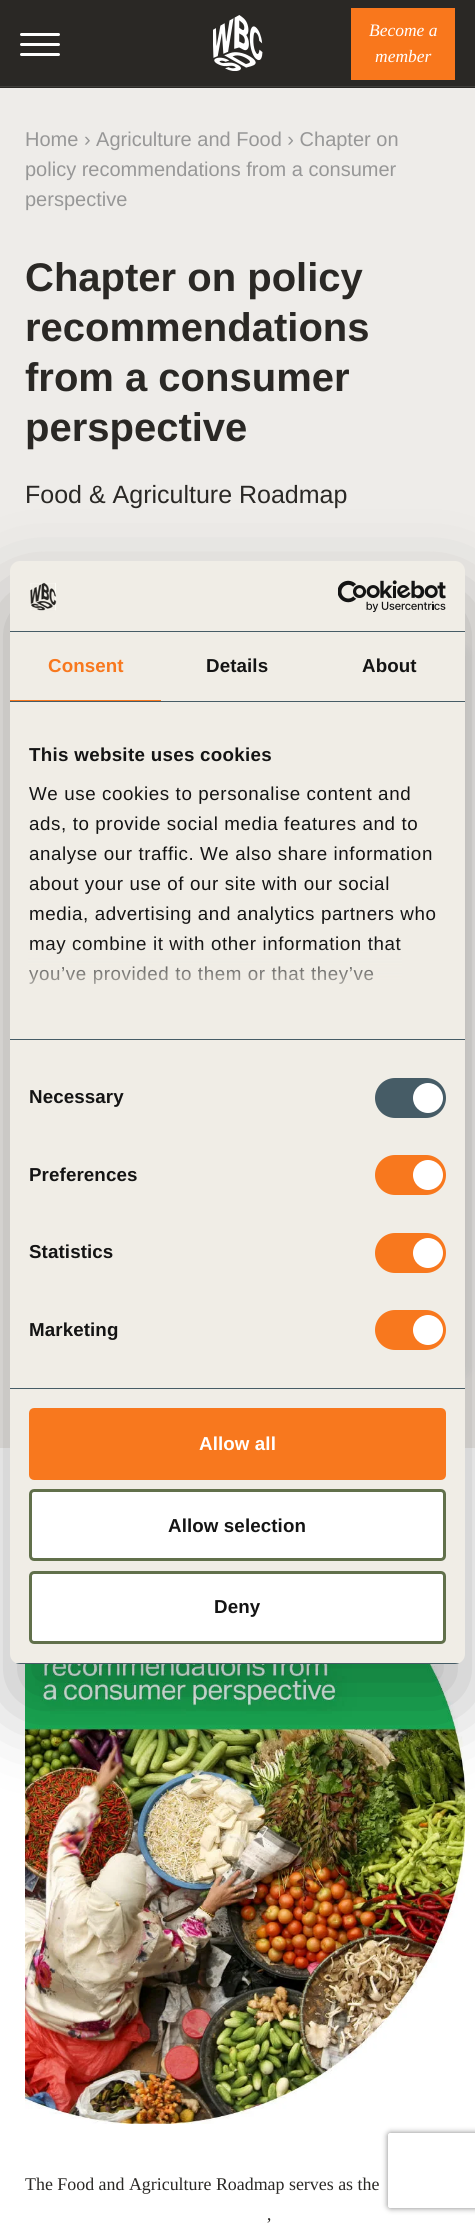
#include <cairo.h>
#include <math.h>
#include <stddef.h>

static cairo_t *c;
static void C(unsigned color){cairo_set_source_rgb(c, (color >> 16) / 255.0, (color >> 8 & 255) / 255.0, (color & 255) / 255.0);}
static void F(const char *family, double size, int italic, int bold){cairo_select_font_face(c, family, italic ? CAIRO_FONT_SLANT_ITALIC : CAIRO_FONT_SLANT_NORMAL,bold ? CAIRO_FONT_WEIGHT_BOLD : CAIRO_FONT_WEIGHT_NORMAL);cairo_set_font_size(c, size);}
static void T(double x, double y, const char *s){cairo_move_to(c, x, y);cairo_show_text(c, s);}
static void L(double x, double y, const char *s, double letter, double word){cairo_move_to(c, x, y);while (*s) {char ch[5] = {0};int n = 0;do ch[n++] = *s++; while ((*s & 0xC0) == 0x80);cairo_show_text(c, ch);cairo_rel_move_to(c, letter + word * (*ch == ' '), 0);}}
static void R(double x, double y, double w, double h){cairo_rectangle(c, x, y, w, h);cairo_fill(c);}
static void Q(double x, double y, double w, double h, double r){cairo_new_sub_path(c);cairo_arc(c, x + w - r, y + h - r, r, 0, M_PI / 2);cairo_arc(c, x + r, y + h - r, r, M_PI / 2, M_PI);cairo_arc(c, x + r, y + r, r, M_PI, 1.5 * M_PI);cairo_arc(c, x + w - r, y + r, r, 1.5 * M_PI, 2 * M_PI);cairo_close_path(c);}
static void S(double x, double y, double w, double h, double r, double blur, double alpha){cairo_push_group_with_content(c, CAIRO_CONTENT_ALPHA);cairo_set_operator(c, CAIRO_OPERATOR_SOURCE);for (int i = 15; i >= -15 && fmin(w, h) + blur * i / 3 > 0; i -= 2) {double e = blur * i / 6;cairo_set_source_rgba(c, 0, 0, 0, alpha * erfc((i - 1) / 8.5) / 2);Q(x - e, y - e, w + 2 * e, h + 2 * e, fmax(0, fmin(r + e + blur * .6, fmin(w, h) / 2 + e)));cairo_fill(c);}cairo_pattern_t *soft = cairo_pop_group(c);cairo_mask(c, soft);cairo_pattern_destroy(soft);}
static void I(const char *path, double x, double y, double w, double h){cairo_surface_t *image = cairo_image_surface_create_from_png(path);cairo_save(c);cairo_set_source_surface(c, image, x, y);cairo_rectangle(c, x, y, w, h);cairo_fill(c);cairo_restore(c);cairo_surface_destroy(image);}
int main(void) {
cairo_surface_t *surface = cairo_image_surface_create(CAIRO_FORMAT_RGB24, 475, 2224);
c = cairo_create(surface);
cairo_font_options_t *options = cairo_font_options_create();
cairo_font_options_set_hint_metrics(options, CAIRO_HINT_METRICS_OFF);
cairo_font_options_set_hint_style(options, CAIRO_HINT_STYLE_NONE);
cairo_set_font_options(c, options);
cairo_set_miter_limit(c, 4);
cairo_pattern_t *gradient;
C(0xffffff);
cairo_paint(c);
C(0x2a2825);
R(0,0,475,88);
C(0x3f3e3b);
R(0,86,475,1);
C(0xffffff);
Q(20,33,40,3,1.5);
cairo_fill(c);
Q(20,43,40,3,1.5);
cairo_fill(c);
Q(20,53,40,3,1.5);
cairo_fill(c);
I("1.png",213,15,50,56);
C(0xf9771c);
R(351,8,104,72);
F("Liberation Serif",17.5,1,0);
C(0xffffff);
T(369,36,"Become a");
T(375,62,"member");
C(0xeeece9);
R(0,88,475,1360);
F("Liberation Sans",20,0,0);
C(0x979797);
T(25,146,"Home › Agriculture and Food › Chapter on");
T(25,176,"policy recommendations from a consumer");
T(25,206,"perspective");
F("Liberation Sans",40,0,1);
C(0x2a2825);
T(25,291,"Chapter on policy");
T(25,341,"recommendations");
T(25,391,"from a consumer");
T(25,441,"perspective");
F("Liberation Sans",25,0,0);
T(25,503,"Food & Agriculture Roadmap");
C(0x000000);
S(25,650,440,723,5,7.5,.08);
I("2.png",25,1654,440,470);
F("Liberation Serif",17.9,0,0);
C(0x2a2825);
T(25,2190,"The Food and Agriculture Roadmap serves as the");
T(266,2230,"’");
C(0x000000);
S(10,601,455,1103,10,42.5,.3);
C(0xf0ede6);
Q(10,561,455,1103,10);
cairo_fill(c);
C(0x465c66);
R(10,631,455,1);
I("3.png",30,582,27,29);
I("4.png",338,580,108,33);
R(10,701,455,1);
C(0xf8781e);
R(10,700,151,1);
F("Liberation Sans",18.75,0,1);
L(48,672,"Consent",.1,0);
C(0x141414);
L(206,672,"Details",.1,0);
L(362,672,"About",.1,0);
C(0x465c66);
R(10,1039,455,1);
C(0x141414);
L(29,761,"This website uses cookies",.3,0);
F("Liberation Sans",18.75,0,0);
L(29,800,"We use cookies to personalise content and",.6,0);
L(29,830,"ads, to provide social media features and to",.6,0);
L(29,860,"analyse our traffic. We also share information",.6,0);
L(29,890,"about your use of our site with our social",.6,0);
L(29,920,"media, advertising and analytics partners who",.6,0);
L(29,950,"may combine it with other information that",.6,0);
L(29,980,"you’ve provided to them or that they’ve",.6,0);
gradient = cairo_pattern_create_linear(229,1039,229,945);
cairo_pattern_add_color_stop_rgba(gradient,0,0.941,0.929,0.902,1);
cairo_pattern_add_color_stop_rgba(gradient,.5,0.941,0.929,0.902,.8);
cairo_pattern_add_color_stop_rgba(gradient,1,0.941,0.929,0.902,0);
cairo_set_source(c,gradient);
cairo_pattern_destroy(gradient);
R(28,946,374,38);
C(0x465c66);
R(10,1388,455,1);
F("Liberation Sans",18.75,0,1);
C(0x141414);
L(29,1103,"Necessary",.1,0);
C(0x465c66);
Q(375,1078,71,40,20);
cairo_fill(c);
C(0xffffff);
cairo_arc(c,428,1098,15,0,2 * M_PI);
cairo_fill(c);
C(0x141414);
L(29,1181,"Preferences",.1,0);
C(0xf8781e);
Q(375,1155,71,40,20);
cairo_fill(c);
C(0xffffff);
cairo_arc(c,428,1175,15,0,2 * M_PI);
cairo_fill(c);
C(0x141414);
L(29,1258,"Statistics",.1,0);
C(0xf8781e);
Q(375,1233,71,40,20);
cairo_fill(c);
C(0xffffff);
cairo_arc(c,428,1253,15,0,2 * M_PI);
cairo_fill(c);
C(0x141414);
L(29,1336,"Marketing",.1,0);
C(0xf8781e);
Q(375,1310,71,40,20);
cairo_fill(c);
C(0xffffff);
cairo_arc(c,428,1330,15,0,2 * M_PI);
cairo_fill(c);
cairo_save(c);
Q(10,561,455,1103,10);
cairo_clip(c);
C(0x465c66);
R(10,1663,455,1);
cairo_restore(c);
C(0xf8781e);
Q(30.5,1409.5,414,69,3.5);
cairo_fill_preserve(c);
cairo_set_line_width(c,3);
cairo_stroke(c);
C(0xffffff);
L(199,1450,"Allow all",.1,0);
Q(30.5,1490.5,414,69,3.5);
cairo_fill_preserve(c);
C(0x61704b);
cairo_stroke(c);
C(0x141414);
L(168,1532,"Allow selection",.1,0);
C(0xffffff);
Q(30.5,1572.5,414,70,3.5);
cairo_fill_preserve(c);
C(0x61704b);
cairo_stroke(c);
C(0x141414);
L(214,1613,"Deny",.1,0);
cairo_save(c);
cairo_set_fill_rule(c,CAIRO_FILL_RULE_EVEN_ODD);
cairo_new_path(c);
cairo_move_to(c,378,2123);
cairo_line_to(c,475,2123);
cairo_line_to(c,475,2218);
cairo_line_to(c,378,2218);
cairo_close_path(c);
cairo_move_to(c,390.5,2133);
cairo_line_to(c,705.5,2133);
cairo_curve_to(c,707,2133,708,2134,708,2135.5);
cairo_line_to(c,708,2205.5);
cairo_curve_to(c,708,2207,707,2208,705.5,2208);
cairo_line_to(c,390.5,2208);
cairo_curve_to(c,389,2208,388,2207,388,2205.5);
cairo_line_to(c,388,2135.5);
cairo_curve_to(c,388,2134,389,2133,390.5,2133);
cairo_close_path(c);
cairo_clip(c);
C(0x808080);
S(388,2133,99,75,2.5,3,1);
cairo_restore(c);
cairo_surface_write_to_png(surface, "o.png");
cairo_font_options_destroy(options);
cairo_destroy(c);
cairo_surface_destroy(surface);
return 0;
}
